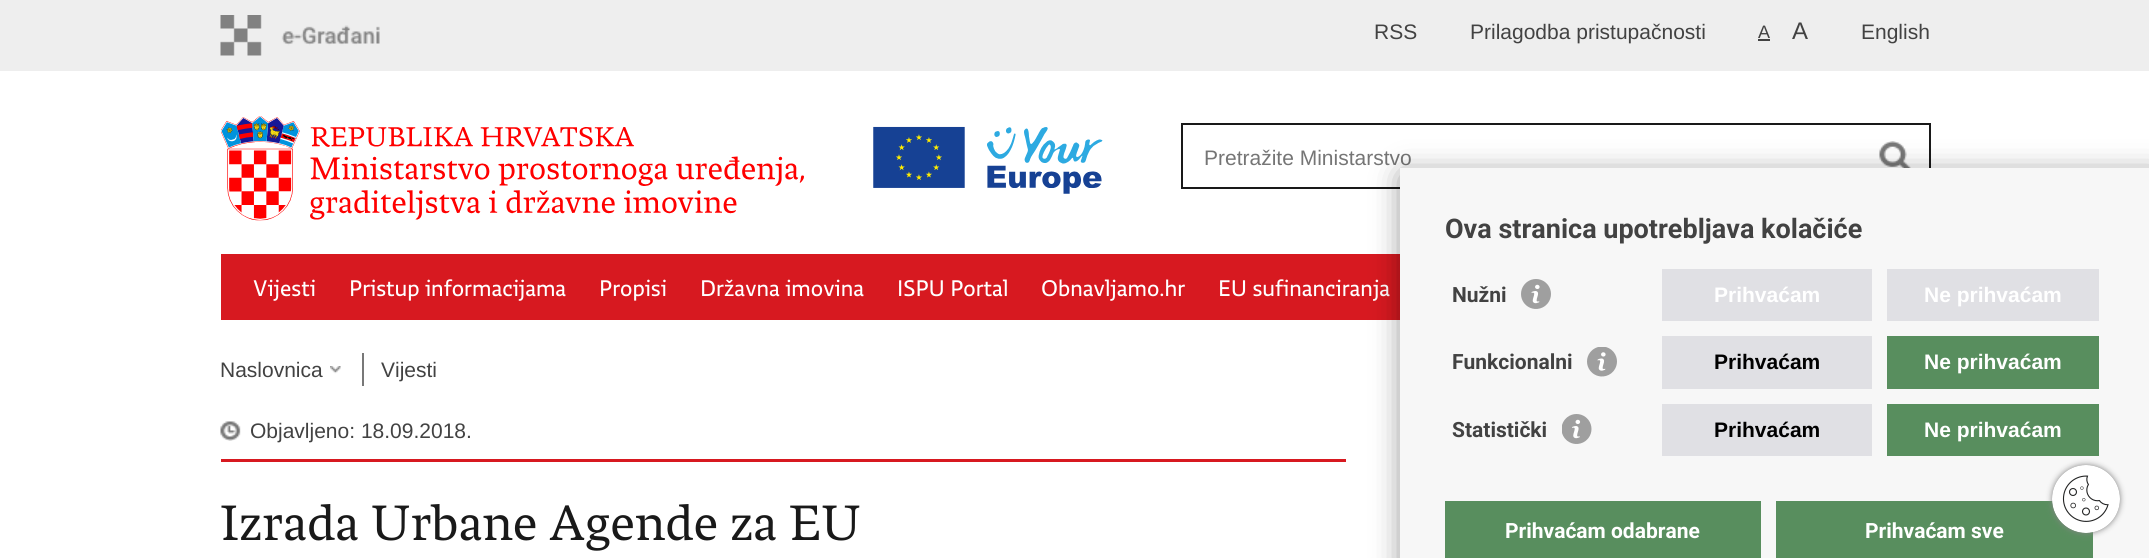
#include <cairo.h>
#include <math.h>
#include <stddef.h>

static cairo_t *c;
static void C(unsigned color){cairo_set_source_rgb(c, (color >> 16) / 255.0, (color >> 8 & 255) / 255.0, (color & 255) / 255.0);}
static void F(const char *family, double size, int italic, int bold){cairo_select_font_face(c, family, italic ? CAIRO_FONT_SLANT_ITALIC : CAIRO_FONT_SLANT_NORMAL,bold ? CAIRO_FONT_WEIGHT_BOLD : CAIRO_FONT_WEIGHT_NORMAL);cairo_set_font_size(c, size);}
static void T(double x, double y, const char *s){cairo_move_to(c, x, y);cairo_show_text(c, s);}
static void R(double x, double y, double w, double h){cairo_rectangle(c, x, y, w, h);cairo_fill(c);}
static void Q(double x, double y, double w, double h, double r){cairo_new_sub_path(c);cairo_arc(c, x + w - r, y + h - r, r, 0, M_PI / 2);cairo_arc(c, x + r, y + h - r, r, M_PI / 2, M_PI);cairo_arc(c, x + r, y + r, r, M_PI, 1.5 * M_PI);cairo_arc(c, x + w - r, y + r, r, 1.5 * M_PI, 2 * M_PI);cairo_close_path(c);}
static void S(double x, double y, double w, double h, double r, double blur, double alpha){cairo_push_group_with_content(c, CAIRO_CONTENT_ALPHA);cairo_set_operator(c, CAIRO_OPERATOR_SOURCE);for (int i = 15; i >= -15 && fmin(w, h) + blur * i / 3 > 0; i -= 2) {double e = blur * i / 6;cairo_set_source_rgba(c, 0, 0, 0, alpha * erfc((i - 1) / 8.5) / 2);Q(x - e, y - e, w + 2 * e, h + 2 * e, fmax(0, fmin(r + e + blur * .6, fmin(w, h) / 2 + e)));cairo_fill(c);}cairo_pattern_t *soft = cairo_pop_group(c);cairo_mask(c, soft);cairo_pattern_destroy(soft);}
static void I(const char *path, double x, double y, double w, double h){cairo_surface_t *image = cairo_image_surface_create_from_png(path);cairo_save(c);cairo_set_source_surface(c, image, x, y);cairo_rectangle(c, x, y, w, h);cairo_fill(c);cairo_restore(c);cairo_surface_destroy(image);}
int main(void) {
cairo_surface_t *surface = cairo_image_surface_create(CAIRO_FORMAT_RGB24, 2149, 558);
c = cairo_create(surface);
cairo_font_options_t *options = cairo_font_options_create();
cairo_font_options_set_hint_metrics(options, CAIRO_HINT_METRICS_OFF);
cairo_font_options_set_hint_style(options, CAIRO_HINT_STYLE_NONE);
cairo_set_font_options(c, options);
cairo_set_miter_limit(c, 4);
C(0xffffff);
cairo_paint(c);
C(0xeeeeee);
R(0,0,2149,71);
I("1.png",220,15,160,41);
F("Liberation Sans",21,0,0);
C(0x424242);
T(1374,39,"RSS");
T(1470,39,"Prilagodba pristupačnosti");
F("Liberation Sans",18,0,0);
T(1758,38,"A");
R(1758,39,12,2);
F("Liberation Sans",24,0,0);
T(1792,39,"A");
F("Liberation Sans",21,0,0);
T(1861,39,"English");
I("2.png",221,116,583,105);
I("3.png",873,126,230,68);
cairo_rectangle(c,1182,124,748,64);
C(0x191919);
cairo_stroke(c);
C(0x757575);
T(1204,165,"Pretražite Ministarstvo");
I("4.png",1879,141,32,27);
C(0xd71920);
R(221,254,1179,66);
F("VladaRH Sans",24,0,0);
C(0xffffff);
T(253,296,"Vijesti");
T(349,296,"Pristup informacijama");
T(599,296,"Propisi");
T(700,296,"Državna imovina");
T(897,296,"ISPU Portal");
T(1041,296,"Obnavljamo.hr");
T(1218,296,"EU sufinanciranja");
F("Liberation Sans",21,0,0);
C(0x424242);
T(220,377,"Naslovnica");
I("5.png",330,366,11,8);
C(0x787878);
R(362,353,2,33);
C(0x424242);
T(381,377,"Vijesti");
C(0x000000);
S(1404,176,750,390,0,15,.5);
C(0xf7f7f7);
R(1400,168,749,390);
F("Roboto",27,0,1);
C(0x424242);
T(1445,238,"Ova stranica upotrebljava kolačiće");
F("Roboto",21,0,1);
T(1452,302,"Nužni");
I("6.png",1521,279,30,30);
C(0xe0e0e4);
R(1662,269,210,52);
F("Liberation Sans",21,0,1);
C(0xffffff);
T(1714,302,"Prihvaćam");
C(0xe0e0e4);
R(1887,269,212,52);
C(0xffffff);
T(1924,302,"Ne prihvaćam");
F("Roboto",21,0,1);
C(0x424242);
T(1452,369,"Funkcionalni");
I("7.png",1587,347,30,30);
C(0xe0e0e4);
R(1662,336,210,53);
F("Liberation Sans",21,0,1);
C(0x000000);
T(1714,369,"Prihvaćam");
C(0x588e5e);
R(1887,336,212,53);
C(0xffffff);
T(1924,369,"Ne prihvaćam");
F("Roboto",21,0,1);
C(0x424242);
T(1452,437,"Statistički");
I("8.png",1562,414,30,30);
C(0xe0e0e4);
R(1662,404,210,52);
F("Liberation Sans",21,0,1);
C(0x000000);
T(1714,437,"Prihvaćam");
C(0x588e5e);
R(1887,404,212,52);
C(0xffffff);
T(1924,437,"Ne prihvaćam");
C(0x588e5e);
R(1445,501,316,57);
F("Roboto",21,0,1);
C(0xffffff);
T(1505,538,"Prihvaćam odabrane");
C(0x588e5e);
R(1776,501,317,57);
C(0xffffff);
T(1865,538,"Prihvaćam sve");
C(0xd71920);
R(221,459,1125,3);
I("9.png",220,421,21,20);
F("Liberation Sans",21,0,0);
C(0x424242);
T(250,438,"Objavljeno: 18.09.2018.");
F("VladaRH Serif",52.5,0,0);
C(0x191919);
T(220,540,"Izrada Urbane Agende za EU");
C(0x858585);
S(2052,465,68,68,34,3,1);
I("10.png",2052,465,68,68);
cairo_surface_write_to_png(surface, "o.png");
cairo_font_options_destroy(options);
cairo_destroy(c);
cairo_surface_destroy(surface);
return 0;
}
